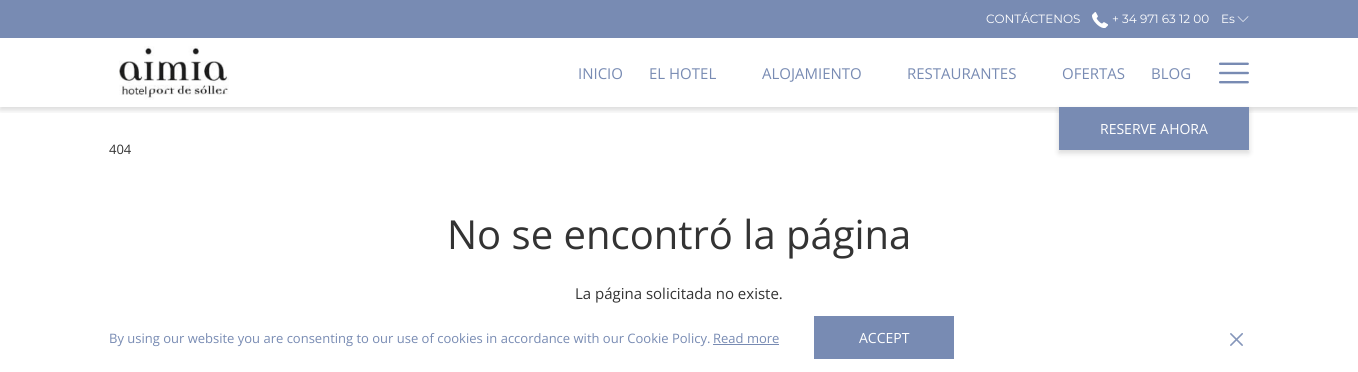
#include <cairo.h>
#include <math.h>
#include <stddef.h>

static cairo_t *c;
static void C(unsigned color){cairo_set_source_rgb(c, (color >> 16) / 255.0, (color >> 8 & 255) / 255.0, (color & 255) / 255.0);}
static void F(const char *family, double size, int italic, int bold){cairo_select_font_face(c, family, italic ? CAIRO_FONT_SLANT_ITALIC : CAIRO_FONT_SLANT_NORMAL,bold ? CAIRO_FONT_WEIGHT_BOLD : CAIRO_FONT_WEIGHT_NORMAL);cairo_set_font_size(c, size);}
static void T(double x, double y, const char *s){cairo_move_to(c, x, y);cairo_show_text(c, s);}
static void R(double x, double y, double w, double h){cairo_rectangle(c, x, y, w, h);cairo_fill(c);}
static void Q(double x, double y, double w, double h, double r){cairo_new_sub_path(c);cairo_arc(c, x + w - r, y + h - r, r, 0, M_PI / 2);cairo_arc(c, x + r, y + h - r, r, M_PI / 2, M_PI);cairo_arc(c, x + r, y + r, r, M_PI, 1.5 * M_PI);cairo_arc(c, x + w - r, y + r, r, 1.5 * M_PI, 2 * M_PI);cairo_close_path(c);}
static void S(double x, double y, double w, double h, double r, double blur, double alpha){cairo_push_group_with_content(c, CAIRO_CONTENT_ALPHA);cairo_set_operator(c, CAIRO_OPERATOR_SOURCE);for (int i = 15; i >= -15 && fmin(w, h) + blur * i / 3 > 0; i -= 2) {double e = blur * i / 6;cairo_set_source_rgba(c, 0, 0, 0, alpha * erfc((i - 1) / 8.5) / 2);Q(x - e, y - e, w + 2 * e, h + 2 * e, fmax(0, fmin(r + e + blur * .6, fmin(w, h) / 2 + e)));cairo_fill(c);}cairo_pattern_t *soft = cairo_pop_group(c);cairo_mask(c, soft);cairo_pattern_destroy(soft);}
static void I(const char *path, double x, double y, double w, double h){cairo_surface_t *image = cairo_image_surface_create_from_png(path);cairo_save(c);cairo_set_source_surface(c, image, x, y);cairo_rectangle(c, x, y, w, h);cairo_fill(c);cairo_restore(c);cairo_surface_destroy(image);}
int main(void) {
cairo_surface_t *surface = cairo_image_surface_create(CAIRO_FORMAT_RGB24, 1358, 372);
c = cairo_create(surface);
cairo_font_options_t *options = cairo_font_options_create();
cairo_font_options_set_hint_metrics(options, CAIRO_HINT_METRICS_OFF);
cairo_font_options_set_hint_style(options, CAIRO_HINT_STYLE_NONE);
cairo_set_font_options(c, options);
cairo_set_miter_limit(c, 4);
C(0xffffff);
cairo_paint(c);
C(0x788bb3);
R(0,0,1358,38);
F("Montserrat",12,0,0);
C(0xffffff);
T(986,23,"CONTÁCTENOS");
I("1.png",1092,12,16,16);
T(1112,23,"+ 34 971 63 12 00");
T(1221,23,"Es");
I("2.png",1237,16,12,6);
cairo_save(c);
cairo_rectangle(c,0,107,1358,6);
cairo_clip(c);
C(0x000000);
S(0,41,1358,69,0,3,.15);
cairo_restore(c);
I("3.png",119,46,110,54);
F("Open Sans",15,0,0);
C(0x788bb3);
T(578,79,"INICIO");
T(649,79,"EL HOTEL");
T(762,79,"ALOJAMIENTO");
T(907,79,"RESTAURANTES");
T(1062,79,"OFERTAS");
T(1151,79,"BLOG");
I("4.png",1219,62,30,22);
C(0x000000);
S(1059,110,190,43,0,3,.15);
C(0x788bb3);
R(1059,107,190,43);
F("Open Sans",14,0,0);
C(0xffffff);
T(1100,134,"RESERVE AHORA");
F("Open Sans",13,0,0);
C(0x333333);
T(109,154,"404");
F("Open Sans",40,0,0);
T(447,249,"No se encontró la página");
F("Open Sans",15,0,0);
T(575,299,"La página solicitada no existe.");
F("Open Sans",13,0,0);
C(0x788bb3);
T(109,343,"By using our website you are consenting to our use of cookies in accordance with our Cookie Policy.");
T(713,343,"Read more");
R(713,344,66,1);
R(814,316,140,43);
F("Open Sans",14,0,0);
C(0xffffff);
T(859,343,"ACCEPT");
I("5.png",1230,333,13,13);
cairo_surface_write_to_png(surface, "o.png");
cairo_font_options_destroy(options);
cairo_destroy(c);
cairo_surface_destroy(surface);
return 0;
}
